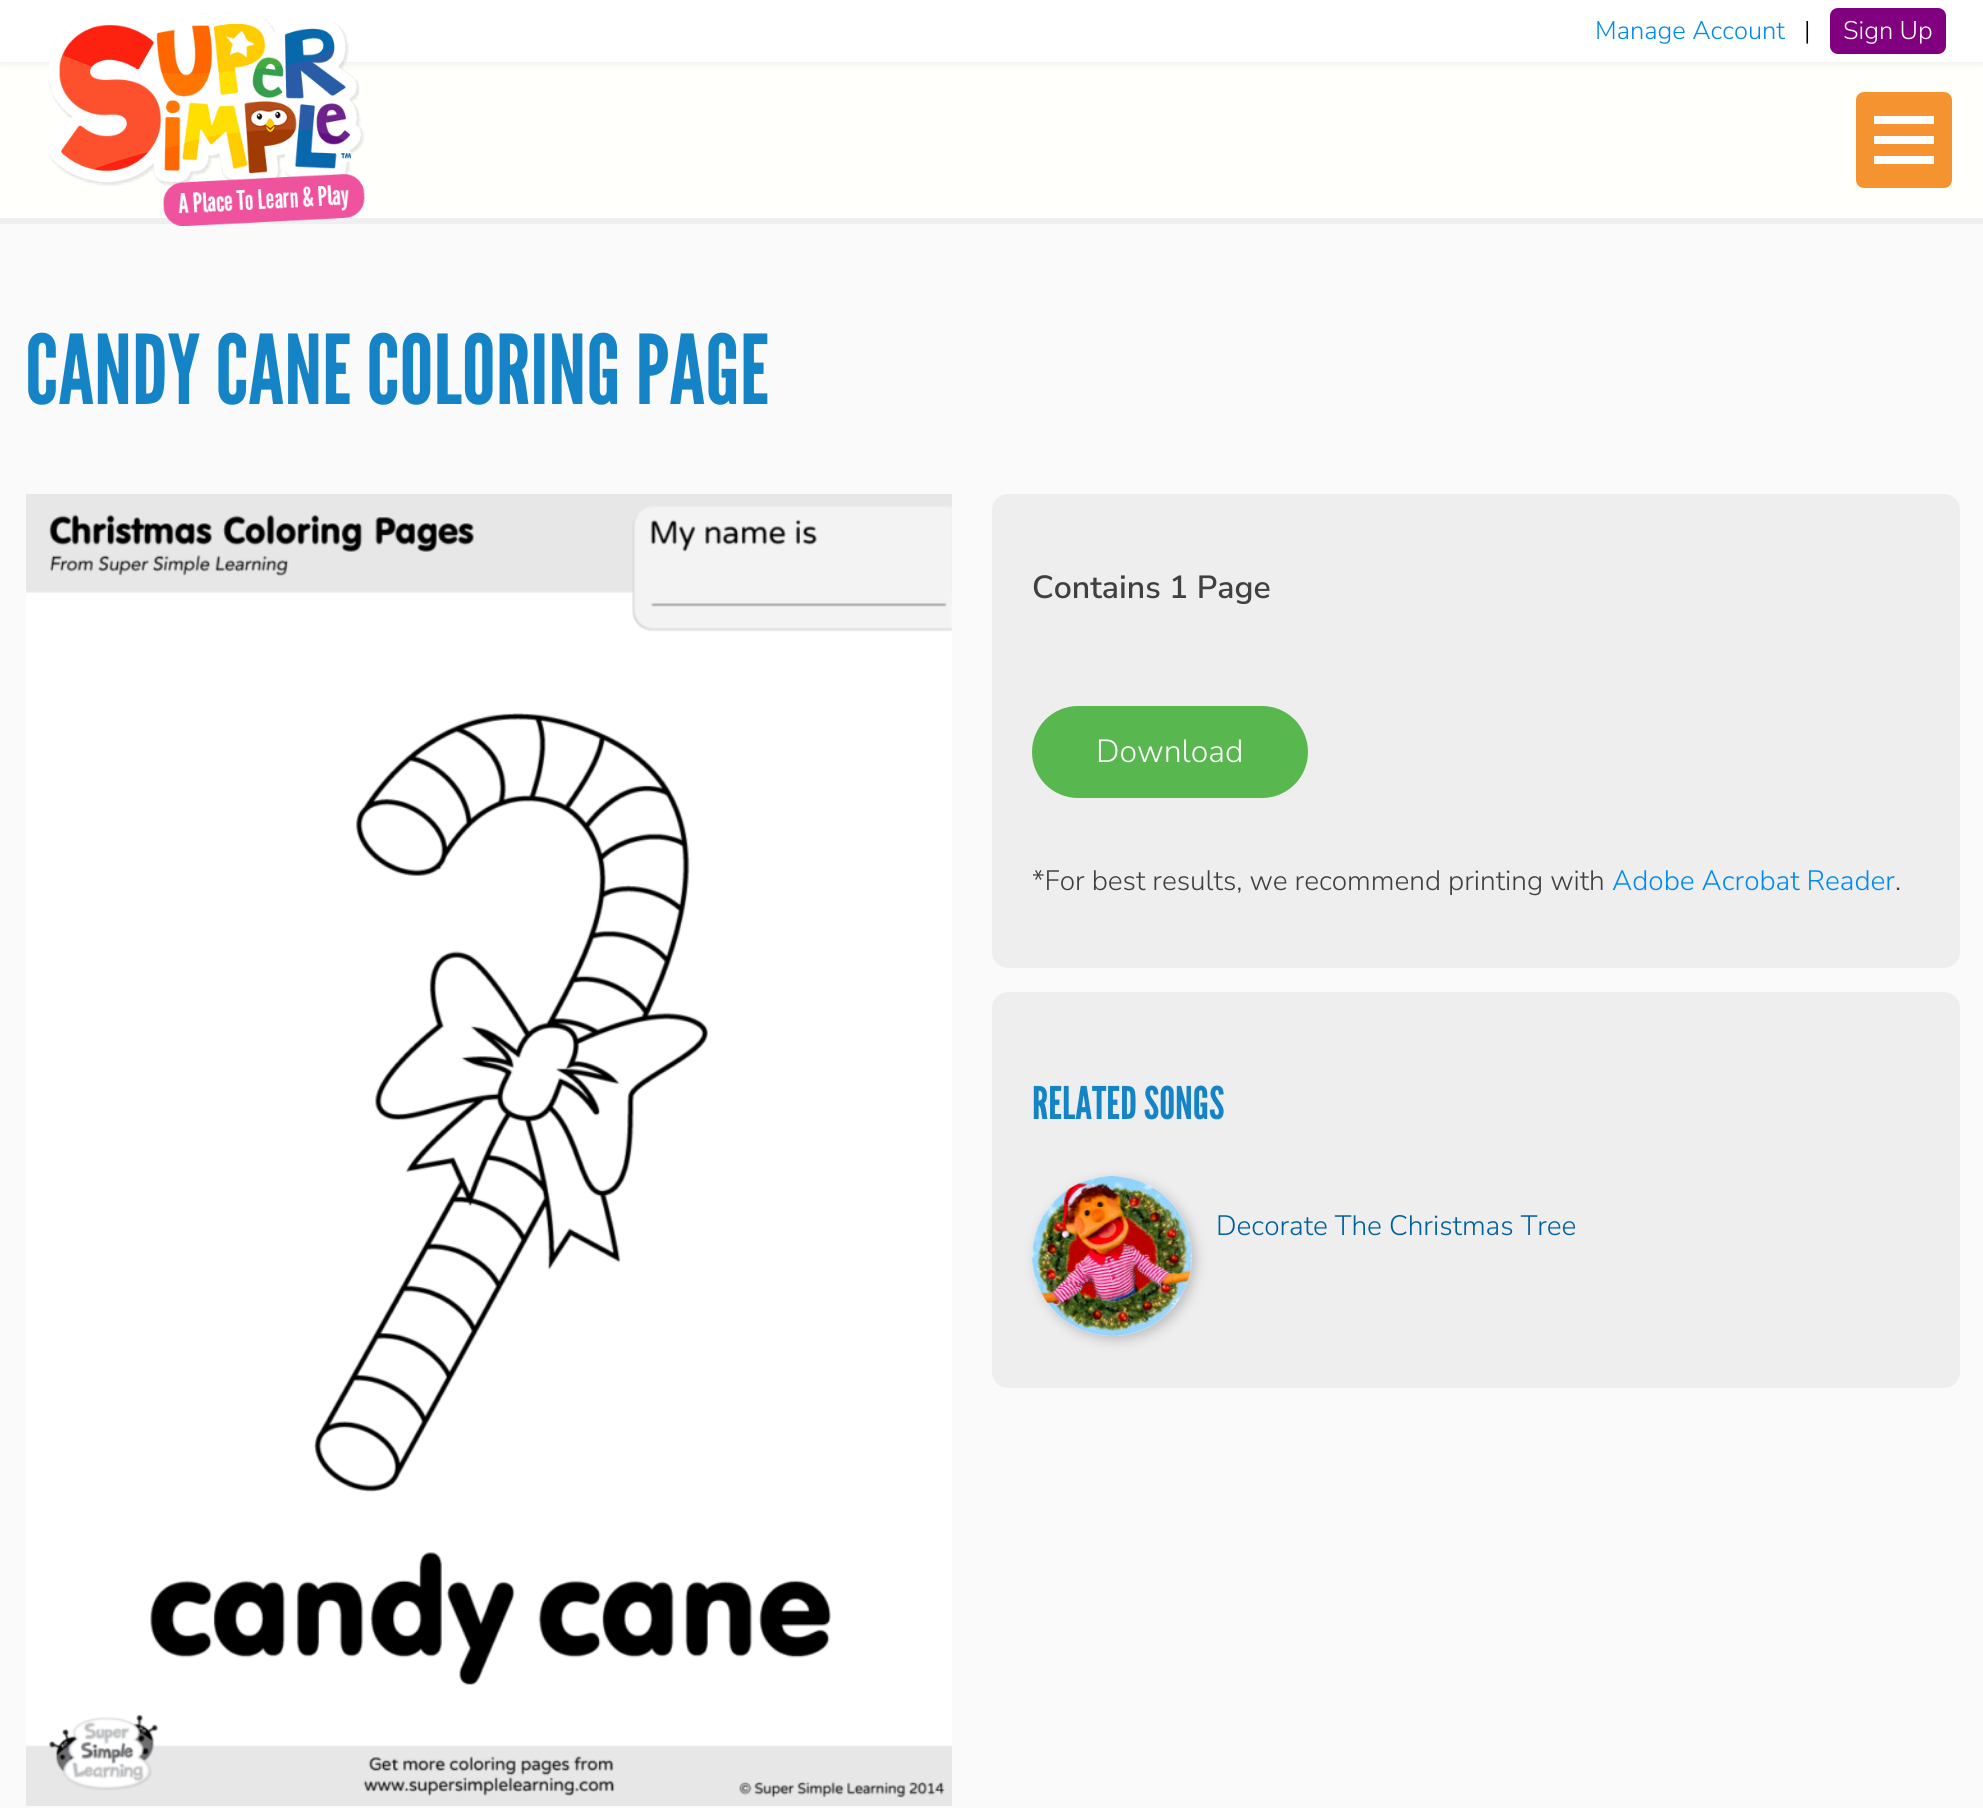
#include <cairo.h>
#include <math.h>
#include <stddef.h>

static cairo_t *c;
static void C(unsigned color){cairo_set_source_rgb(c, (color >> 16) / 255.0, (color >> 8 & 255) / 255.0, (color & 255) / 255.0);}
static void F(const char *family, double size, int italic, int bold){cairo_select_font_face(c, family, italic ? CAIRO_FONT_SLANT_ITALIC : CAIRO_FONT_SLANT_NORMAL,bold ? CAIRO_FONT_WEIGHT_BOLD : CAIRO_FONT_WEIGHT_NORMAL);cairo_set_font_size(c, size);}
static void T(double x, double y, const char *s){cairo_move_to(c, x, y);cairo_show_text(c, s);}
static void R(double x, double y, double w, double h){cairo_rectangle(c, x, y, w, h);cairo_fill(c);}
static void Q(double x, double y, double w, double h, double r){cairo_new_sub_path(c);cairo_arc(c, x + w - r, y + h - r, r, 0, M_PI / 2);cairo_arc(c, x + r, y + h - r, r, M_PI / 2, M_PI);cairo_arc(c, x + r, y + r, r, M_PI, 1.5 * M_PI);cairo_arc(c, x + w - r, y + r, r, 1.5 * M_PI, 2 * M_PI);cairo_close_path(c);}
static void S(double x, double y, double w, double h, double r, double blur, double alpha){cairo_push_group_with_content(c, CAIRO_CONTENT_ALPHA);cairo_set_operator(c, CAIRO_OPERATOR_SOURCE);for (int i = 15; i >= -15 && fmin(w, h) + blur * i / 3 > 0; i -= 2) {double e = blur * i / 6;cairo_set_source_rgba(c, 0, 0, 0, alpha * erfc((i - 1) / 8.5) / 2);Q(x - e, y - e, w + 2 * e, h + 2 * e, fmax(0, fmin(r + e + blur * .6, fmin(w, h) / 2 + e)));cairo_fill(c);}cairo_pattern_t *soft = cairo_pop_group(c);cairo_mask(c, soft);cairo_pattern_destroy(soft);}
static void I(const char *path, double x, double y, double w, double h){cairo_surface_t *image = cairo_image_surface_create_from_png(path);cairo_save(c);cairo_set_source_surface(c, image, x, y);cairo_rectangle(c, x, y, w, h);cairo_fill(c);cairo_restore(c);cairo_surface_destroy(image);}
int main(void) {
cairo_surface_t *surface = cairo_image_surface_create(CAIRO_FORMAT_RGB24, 1983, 1808);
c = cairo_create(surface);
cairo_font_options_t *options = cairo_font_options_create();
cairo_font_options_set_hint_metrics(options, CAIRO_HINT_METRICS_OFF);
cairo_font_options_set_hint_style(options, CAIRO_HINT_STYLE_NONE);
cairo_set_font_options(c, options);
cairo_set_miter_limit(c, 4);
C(0xfafafa);
cairo_paint(c);
C(0xfffffb);
R(0,62,1983,156);
C(0xefefef);
R(0,218,1983,6);
C(0x000000);
S(0,0,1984,62,0,5,.1);
C(0xffffff);
R(0,0,1983,62);
I("1.png",48,11,317,215);
C(0xf59331);
Q(1856,92,96,96,8);
cairo_fill(c);
C(0xffffff);
R(1874,136,60,8);
R(1874,116,60,8);
R(1874,156,60,8);
F("Nunito Sans Light",25.5,0,0);
C(0x008aee);
T(1595,39,"Manage Account");
C(0x000000);
T(1804,39,"|");
C(0x800080);
Q(1830,8,116,46,8);
cairo_fill(c);
C(0xffffff);
T(1843,39,"Sign Up");
F("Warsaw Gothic",96,0,0);
C(0x1484c6);
T(25,404,"CANDY CANE COLORING PAGE");
I("2.png",26,494,926,1312);
C(0xeeeeee);
Q(992,494,968,474,16);
cairo_fill(c);
F("Nunito Sans SemiBold",32,0,0);
C(0x404040);
T(1032,598,"Contains 1 Page");
C(0x58b74e);
Q(1032,706,276,92,46);
cairo_fill(c);
F("Nunito Sans Light",32,0,0);
C(0xffffff);
T(1096,762,"Download");
F("Nunito Sans Light",28,0,0);
C(0x404040);
T(1032,890,"*For best results, we recommend printing with");
C(0x008aee);
T(1612,890,"Adobe Acrobat Reader");
C(0x404040);
T(1895,890,".");
C(0xeeeeee);
Q(992,992,968,396,16);
cairo_fill(c);
F("Warsaw Gothic",45,0,0);
C(0x1484c6);
T(1032,1119,"RELATED SONGS");
C(0x000000);
S(1036,1180,160,160,80,6,.2);
I("3.png",1032,1176,160,160);
F("Nunito Sans Light",28,0,0);
C(0x00609c);
T(1216,1235,"Decorate The Christmas Tree");
cairo_surface_write_to_png(surface, "o.png");
cairo_font_options_destroy(options);
cairo_destroy(c);
cairo_surface_destroy(surface);
return 0;
}
